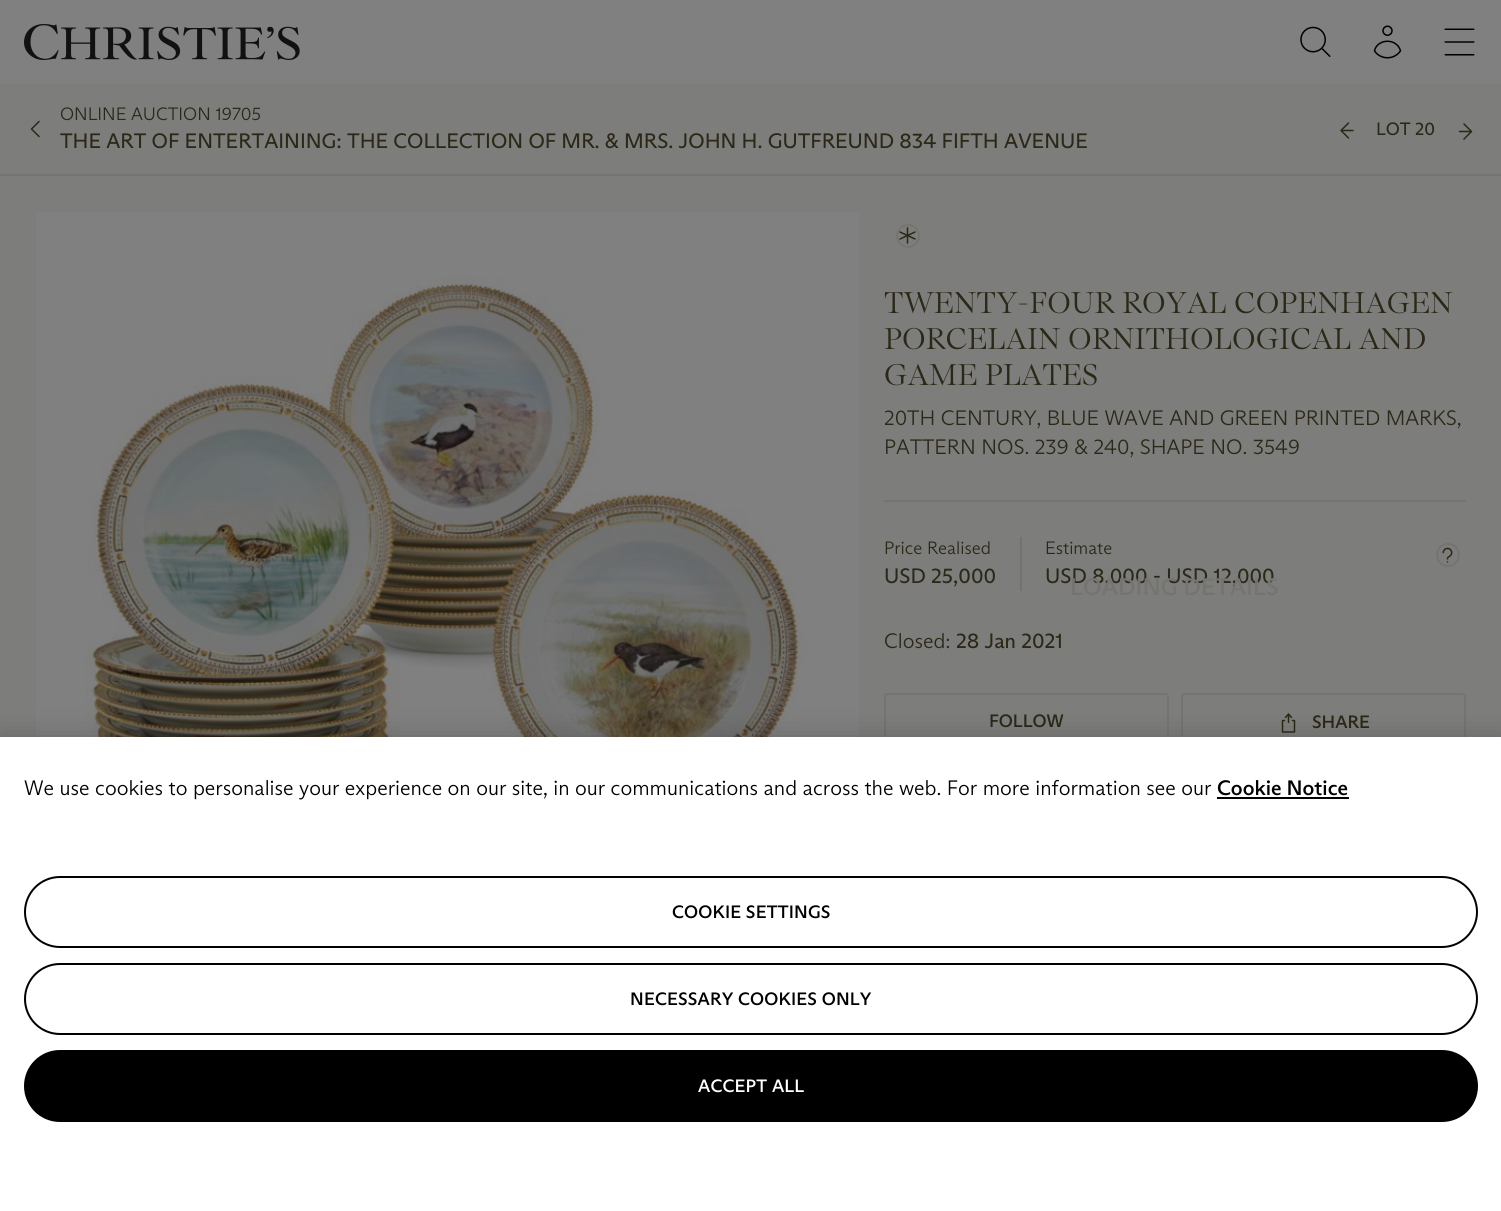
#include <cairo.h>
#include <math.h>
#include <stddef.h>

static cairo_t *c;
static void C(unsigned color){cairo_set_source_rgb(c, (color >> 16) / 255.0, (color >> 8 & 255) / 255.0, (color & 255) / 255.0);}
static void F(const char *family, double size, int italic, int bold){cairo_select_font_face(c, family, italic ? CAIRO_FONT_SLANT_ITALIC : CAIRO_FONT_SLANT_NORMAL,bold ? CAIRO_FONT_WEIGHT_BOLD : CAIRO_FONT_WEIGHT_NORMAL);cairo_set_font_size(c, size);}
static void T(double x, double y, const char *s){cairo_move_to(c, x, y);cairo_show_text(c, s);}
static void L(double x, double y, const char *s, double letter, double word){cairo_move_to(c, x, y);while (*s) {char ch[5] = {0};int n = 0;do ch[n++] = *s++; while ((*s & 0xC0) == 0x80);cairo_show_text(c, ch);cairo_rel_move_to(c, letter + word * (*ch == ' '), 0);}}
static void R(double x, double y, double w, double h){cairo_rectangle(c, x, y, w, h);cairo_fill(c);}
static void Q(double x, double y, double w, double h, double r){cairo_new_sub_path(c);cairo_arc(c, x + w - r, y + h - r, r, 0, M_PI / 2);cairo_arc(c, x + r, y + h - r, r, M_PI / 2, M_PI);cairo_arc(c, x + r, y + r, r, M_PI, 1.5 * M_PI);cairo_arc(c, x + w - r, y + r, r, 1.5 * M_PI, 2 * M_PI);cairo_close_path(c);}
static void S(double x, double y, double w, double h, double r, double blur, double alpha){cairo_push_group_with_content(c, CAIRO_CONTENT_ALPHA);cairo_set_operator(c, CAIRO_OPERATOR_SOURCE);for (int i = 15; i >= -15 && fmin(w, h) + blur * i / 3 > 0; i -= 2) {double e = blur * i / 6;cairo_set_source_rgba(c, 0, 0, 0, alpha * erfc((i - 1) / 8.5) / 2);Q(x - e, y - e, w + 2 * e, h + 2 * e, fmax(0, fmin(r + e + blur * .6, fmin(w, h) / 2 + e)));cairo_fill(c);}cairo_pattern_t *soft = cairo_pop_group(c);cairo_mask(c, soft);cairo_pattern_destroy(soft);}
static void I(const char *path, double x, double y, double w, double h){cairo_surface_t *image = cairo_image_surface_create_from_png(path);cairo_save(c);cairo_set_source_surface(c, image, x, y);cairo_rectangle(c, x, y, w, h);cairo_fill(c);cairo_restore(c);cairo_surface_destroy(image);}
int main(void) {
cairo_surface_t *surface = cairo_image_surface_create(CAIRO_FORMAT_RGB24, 1501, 1211);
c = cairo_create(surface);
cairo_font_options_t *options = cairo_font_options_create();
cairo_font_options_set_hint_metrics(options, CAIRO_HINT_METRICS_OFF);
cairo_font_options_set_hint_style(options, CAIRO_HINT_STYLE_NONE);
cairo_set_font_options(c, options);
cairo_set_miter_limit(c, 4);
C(0x808080);
cairo_paint(c);
I("1.png",24,24,276,36);
I("2.png",1300,26,31,31);
I("3.png",1373,25,29,34);
I("4.png",1444,28,31,28);
C(0x7d7d7b);
R(0,84,1501,653);
C(0x757471);
R(0,174,1501,2);
cairo_new_path(c);
cairo_move_to(c,39,121.5);
cairo_line_to(c,31.5,129);
cairo_line_to(c,39,136.5);
C(0x2b2817);
cairo_set_line_width(c,1.5);
cairo_set_line_cap(c,CAIRO_LINE_CAP_ROUND);
cairo_set_line_join(c,CAIRO_LINE_JOIN_ROUND);
cairo_stroke(c);
F("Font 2 Light",18,0,0);
T(60,120,"ONLINE AUCTION 19705");
F("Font",21,0,0);
T(60,148,"THE ART OF ENTERTAINING: THE COLLECTION OF MR. & MRS. JOHN H. GUTFREUND 834 FIFTH AVENUE");
cairo_new_path(c);
cairo_move_to(c,1348.5,123);
cairo_line_to(c,1341,130.5);
cairo_line_to(c,1348.5,138);
cairo_stroke(c);
cairo_new_path(c);
cairo_move_to(c,1342.5,130.5);
cairo_line_to(c,1353,130.5);
cairo_set_line_join(c,CAIRO_LINE_JOIN_MITER);
cairo_stroke(c);
F("Font",18,0,0);
T(1376,135,"LOT 20");
cairo_new_path(c);
cairo_move_to(c,1464,139);
cairo_line_to(c,1471.5,131.5);
cairo_line_to(c,1464,124);
cairo_set_line_join(c,CAIRO_LINE_JOIN_ROUND);
cairo_stroke(c);
cairo_new_path(c);
cairo_move_to(c,1470,131.5);
cairo_line_to(c,1459.5,131.5);
cairo_set_line_join(c,CAIRO_LINE_JOIN_MITER);
cairo_stroke(c);
I("5.png",36,212,823,525);
C(0x757471);
R(884,500,582,2);
cairo_arc(c,908,236,11,0,2 * M_PI);
cairo_set_line_width(c,2);
cairo_set_line_cap(c,CAIRO_LINE_CAP_BUTT);
cairo_stroke(c);
cairo_new_path(c);
cairo_move_to(c,907.5,228);
cairo_line_to(c,907.5,243);
cairo_move_to(c,900,232);
cairo_line_to(c,915,239);
cairo_move_to(c,915,232);
cairo_line_to(c,900,239);
C(0x2b2817);
cairo_set_line_width(c,1.5);
cairo_set_line_cap(c,CAIRO_LINE_CAP_ROUND);
cairo_stroke(c);
F("Font Light",30,0,0);
T(884,313,"TWENTY-FOUR ROYAL COPENHAGEN");
T(884,349,"PORCELAIN ORNITHOLOGICAL AND");
T(884,385,"GAME PLATES");
F("Font 2 Light",21,0,0);
T(884,425,"20TH CENTURY, BLUE WAVE AND GREEN PRINTED MARKS,");
T(884,454,"PATTERN NOS. 239 & 240, SHAPE NO. 3549");
C(0x727270);
R(1020,537,2,54);
F("Font 2 Light",18,0,0);
C(0x2b2817);
T(884,554,"Price Realised");
F("Font",21,0,0);
T(884,583,"USD 25,000");
F("Font 2 Light",18,0,0);
T(1045,554,"Estimate");
F("Font",21,0,0);
T(1045,583,"USD 8,000 - USD 12,000");
cairo_new_path(c);
cairo_arc(c,1448,555,11,0,2 * M_PI);
C(0x757471);
cairo_set_line_width(c,2);
cairo_set_line_cap(c,CAIRO_LINE_CAP_BUTT);
cairo_stroke(c);
I("6.png",1442,547,11,16);
F("Font 2 Light",21,0,0);
C(0x2b2817);
T(884,648,"Closed:");
F("Font",21,0,0);
T(956,648,"28 Jan 2021");
F("Font Medium",24,0,0);
C(0x757471);
T(1070,595,"LOADING DETAILS");
Q(885,694,283,55,2);
cairo_stroke(c);
F("Font Medium",18,0,0);
C(0x2b2817);
T(989,727,"FOLLOW");
Q(1182,694,283,58,2);
C(0x757471);
cairo_stroke(c);
I("7.png",1281,713,15,20);
C(0x2b2817);
T(1312,728,"SHARE");
C(0x000000);
S(0,737,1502,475,0,13.5,.2);
C(0xffffff);
R(0,737,1501,474);
F("Font 2 Light",21,0,0);
C(0x000000);
T(24,795,"We use cookies to personalise your experience on our site, in our communications and across the web. For more information see our");
F("Font Medium",21,0,0);
T(1217,795,"Cookie Notice");
R(1217,797,132,2);
Q(25,877,1452,70,35);
cairo_stroke(c);
F("Font Medium",18,0,0);
L(672,918,"COOKIE SETTINGS",.2,0);
Q(25,964,1452,70,35);
cairo_stroke(c);
L(630,1005,"NECESSARY COOKIES ONLY",.2,0);
Q(25,1051,1452,70,35);
cairo_fill_preserve(c);
cairo_stroke(c);
C(0xffffff);
L(698,1092,"ACCEPT ALL",.2,0);
cairo_surface_write_to_png(surface, "o.png");
cairo_font_options_destroy(options);
cairo_destroy(c);
cairo_surface_destroy(surface);
return 0;
}
